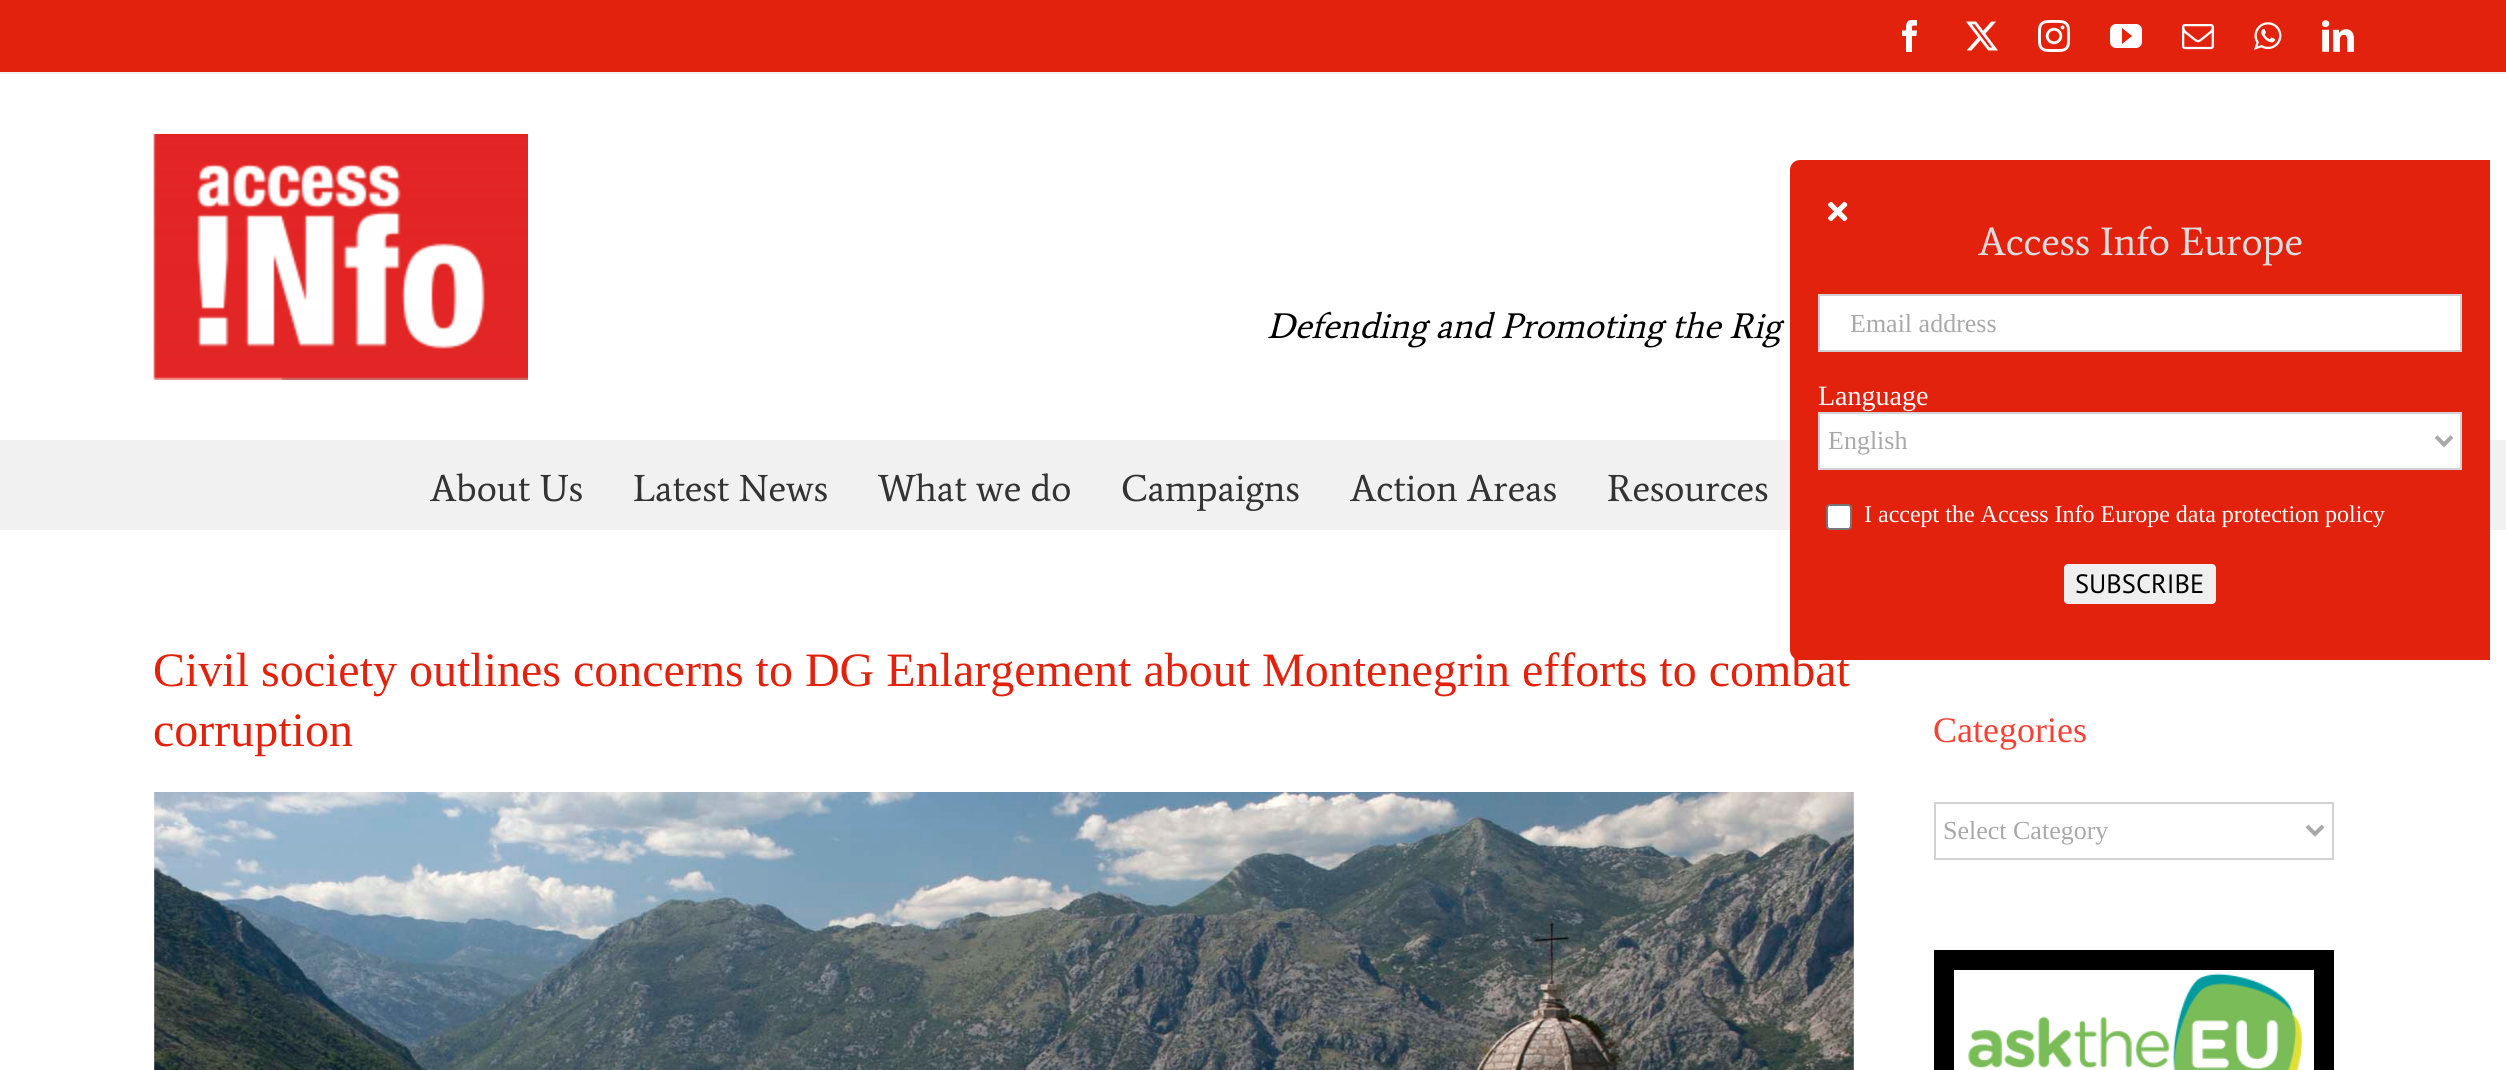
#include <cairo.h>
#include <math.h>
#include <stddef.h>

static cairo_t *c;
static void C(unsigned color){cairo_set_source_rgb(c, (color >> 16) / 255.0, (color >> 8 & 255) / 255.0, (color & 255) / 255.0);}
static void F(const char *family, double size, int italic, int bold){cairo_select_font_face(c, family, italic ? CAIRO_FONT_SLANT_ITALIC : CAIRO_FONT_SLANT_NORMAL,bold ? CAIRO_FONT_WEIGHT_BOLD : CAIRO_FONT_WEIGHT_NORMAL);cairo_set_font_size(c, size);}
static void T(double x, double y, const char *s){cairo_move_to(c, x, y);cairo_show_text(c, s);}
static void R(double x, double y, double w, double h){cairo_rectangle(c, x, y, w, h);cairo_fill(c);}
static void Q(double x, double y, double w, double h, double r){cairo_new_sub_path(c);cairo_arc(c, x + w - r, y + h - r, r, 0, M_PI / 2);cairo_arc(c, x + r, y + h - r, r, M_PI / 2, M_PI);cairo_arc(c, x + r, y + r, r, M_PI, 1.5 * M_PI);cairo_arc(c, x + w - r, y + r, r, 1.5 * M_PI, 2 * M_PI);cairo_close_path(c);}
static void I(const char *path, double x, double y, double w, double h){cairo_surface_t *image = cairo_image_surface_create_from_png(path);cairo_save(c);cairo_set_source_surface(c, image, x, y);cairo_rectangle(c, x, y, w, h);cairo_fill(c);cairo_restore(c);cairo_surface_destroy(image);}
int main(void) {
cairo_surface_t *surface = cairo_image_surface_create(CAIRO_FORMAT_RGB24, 2506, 1070);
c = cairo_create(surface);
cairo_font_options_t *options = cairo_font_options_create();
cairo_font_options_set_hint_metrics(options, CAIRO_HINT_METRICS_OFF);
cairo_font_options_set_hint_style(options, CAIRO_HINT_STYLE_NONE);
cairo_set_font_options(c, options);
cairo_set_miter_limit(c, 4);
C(0xffffff);
cairo_paint(c);
C(0xe3220e);
R(0,0,2506,72);
C(0xf1f1f1);
R(0,72,2506,2);
I("1.png",1902,20,15,32);
I("2.png",1966,21,32,30);
I("3.png",2038,20,32,32);
I("4.png",2110,24,32,24);
I("5.png",2182,24,32,26);
I("6.png",2254,22,28,28);
I("7.png",2322,20,32,32);
I("8.png",153,134,375,246);
F("Average",36,1,0);
C(0x000000);
T(1267,338,"Defending and Promoting the Rig");
C(0xf1f1f1);
R(0,440,2506,90);
F("Average",38,0,0);
C(0x333333);
T(430,501,"About Us");
T(633,501,"Latest News");
T(878,501,"What we do");
T(1121,501,"Campaigns");
T(1350,501,"Action Areas");
T(1607,501,"Resources");
C(0xe3220e);
cairo_new_path(c);
cairo_move_to(c,1800,160);
cairo_line_to(c,2490,160);
cairo_line_to(c,2490,660);
cairo_line_to(c,1800,660);
cairo_curve_to(c,1794.5,660,1790,655.5,1790,650);
cairo_line_to(c,1790,170);
cairo_curve_to(c,1790,164.5,1794.5,160,1800,160);
cairo_close_path(c);
cairo_fill(c);
I("9.png",1828,201,20,21);
F("Average",40,0,0);
C(0xdddddd);
T(1978,255,"Access Info Europe");
C(0xffffff);
cairo_rectangle(c,1819,295,642,56);
cairo_fill_preserve(c);
C(0xd2d2d2);
cairo_stroke(c);
F("Liberation Serif",26,0,0);
C(0xaaa9a9);
T(1850,332,"Email address");
F("Liberation Serif",28,0,0);
C(0xffffff);
T(1818,405,"Language");
cairo_rectangle(c,1819,413,642,56);
cairo_fill_preserve(c);
C(0xd2d2d2);
cairo_stroke(c);
cairo_new_path(c);
cairo_move_to(c,2436,436.5);
cairo_line_to(c,2444,444.5);
cairo_line_to(c,2452,436.5);
C(0xaaa9a9);
cairo_set_line_width(c,4);
cairo_stroke(c);
F("Liberation Serif",26,0,0);
T(1828,449,"English");
C(0xffffff);
Q(1827,505,24,24,3);
cairo_fill_preserve(c);
C(0x767676);
cairo_set_line_width(c,2);
cairo_stroke(c);
F("Liberation Serif",24,0,0);
C(0xffffff);
T(1864,522,"I accept the Access Info Europe data protection policy");
C(0xefefef);
Q(2064,564,152,40,4);
cairo_fill(c);
F("PT Sans",26.5,0,0);
C(0x000000);
T(2075,593,"SUBSCRIBE");
F("Liberation Serif",48,0,0);
C(0xe3220e);
T(153,686,"Civil society outlines concerns to DG Enlargement about Montenegrin efforts to combat");
T(153,746,"corruption");
I("10.png",154,792,1700,278);
F("Liberation Serif",36,0,0);
C(0xf44336);
T(1933,742,"Categories");
cairo_rectangle(c,1935,803,398,56);
C(0xd2d2d2);
cairo_stroke(c);
cairo_new_path(c);
cairo_move_to(c,2307,826);
cairo_line_to(c,2315,834);
cairo_line_to(c,2323,826);
C(0xaaa9a9);
cairo_set_line_width(c,4);
cairo_stroke(c);
F("Liberation Serif",26,0,0);
T(1943,839,"Select Category");
cairo_rectangle(c,1944,960,380,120);
C(0x000000);
cairo_set_line_width(c,20);
cairo_stroke(c);
I("11.png",1968,973,335,97);
cairo_surface_write_to_png(surface, "o.png");
cairo_font_options_destroy(options);
cairo_destroy(c);
cairo_surface_destroy(surface);
return 0;
}
